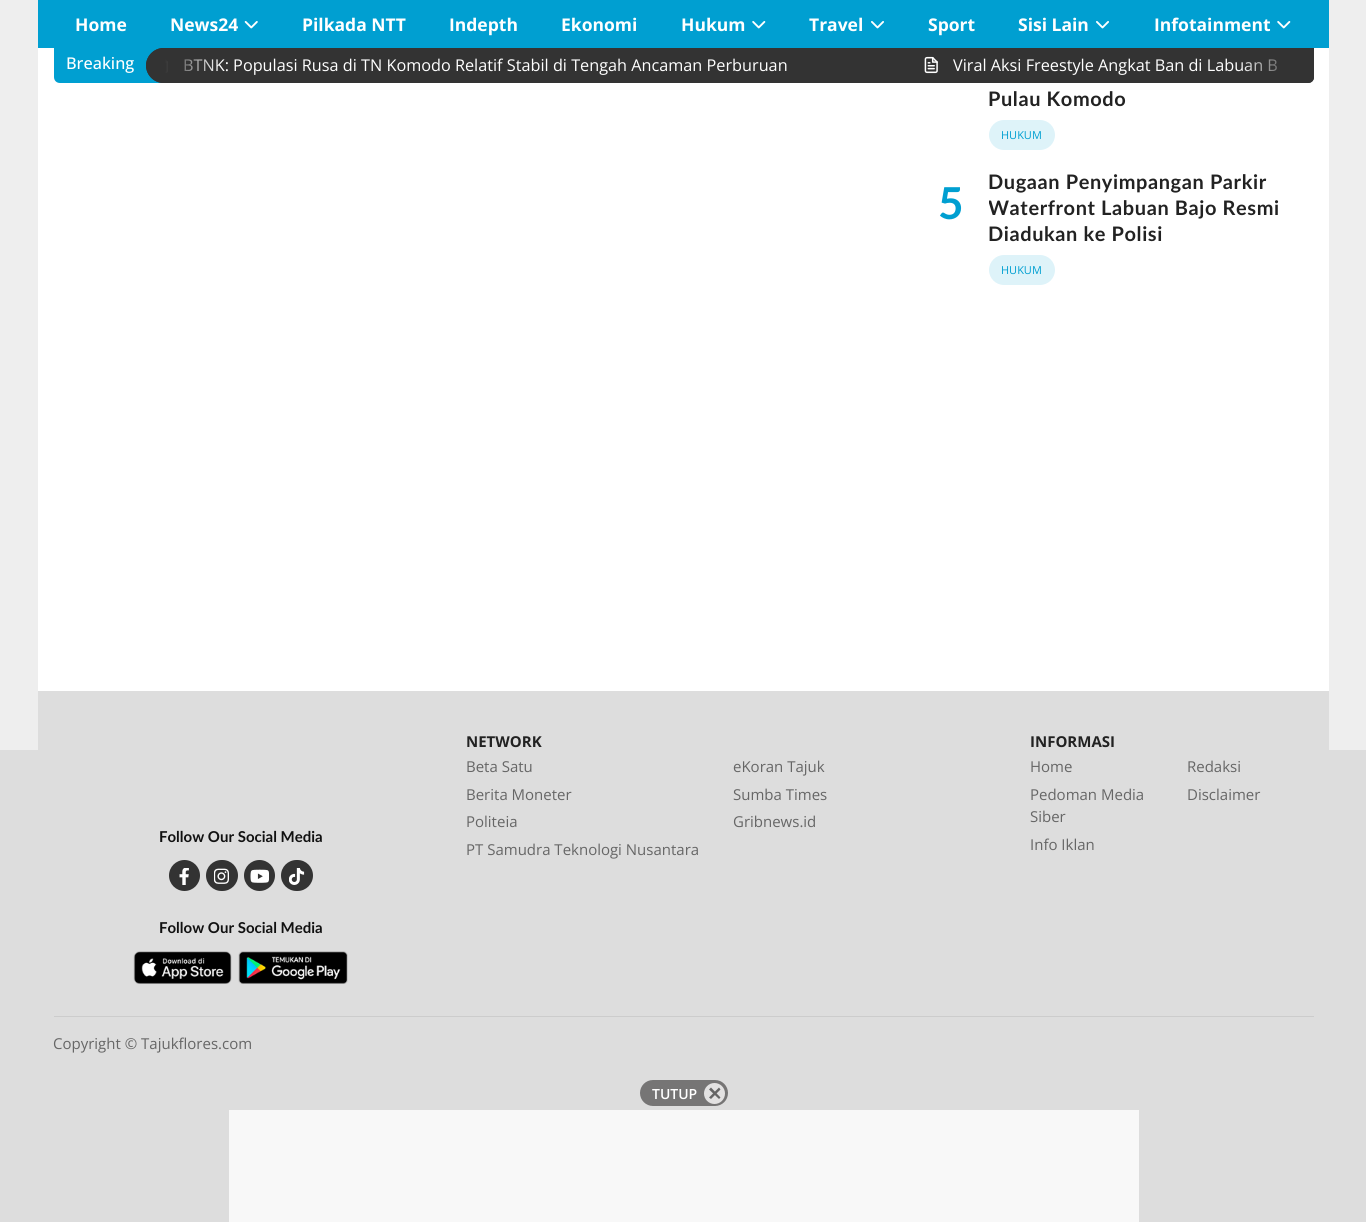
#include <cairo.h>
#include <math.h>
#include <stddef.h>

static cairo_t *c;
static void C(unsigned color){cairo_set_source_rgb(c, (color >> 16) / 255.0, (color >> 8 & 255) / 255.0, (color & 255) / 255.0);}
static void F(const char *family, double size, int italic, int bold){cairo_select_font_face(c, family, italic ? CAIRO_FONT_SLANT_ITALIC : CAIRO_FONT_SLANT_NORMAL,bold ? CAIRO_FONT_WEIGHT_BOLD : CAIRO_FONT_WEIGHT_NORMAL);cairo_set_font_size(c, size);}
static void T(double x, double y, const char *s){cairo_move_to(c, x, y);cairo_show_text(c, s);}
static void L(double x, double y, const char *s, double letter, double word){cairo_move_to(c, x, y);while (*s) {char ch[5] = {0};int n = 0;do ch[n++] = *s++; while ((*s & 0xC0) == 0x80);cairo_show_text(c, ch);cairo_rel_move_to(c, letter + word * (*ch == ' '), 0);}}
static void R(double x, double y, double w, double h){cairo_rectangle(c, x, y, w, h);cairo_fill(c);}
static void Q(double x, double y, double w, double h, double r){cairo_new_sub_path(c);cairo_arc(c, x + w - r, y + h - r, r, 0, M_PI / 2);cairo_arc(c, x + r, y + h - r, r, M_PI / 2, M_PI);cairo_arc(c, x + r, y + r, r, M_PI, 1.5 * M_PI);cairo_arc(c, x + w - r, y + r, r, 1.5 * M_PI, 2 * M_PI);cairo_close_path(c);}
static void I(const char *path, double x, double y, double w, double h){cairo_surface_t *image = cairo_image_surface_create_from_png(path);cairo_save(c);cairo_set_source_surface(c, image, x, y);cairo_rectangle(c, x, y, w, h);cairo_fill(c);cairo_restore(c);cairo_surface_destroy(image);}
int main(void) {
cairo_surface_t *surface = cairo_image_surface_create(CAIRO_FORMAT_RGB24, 1366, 1222);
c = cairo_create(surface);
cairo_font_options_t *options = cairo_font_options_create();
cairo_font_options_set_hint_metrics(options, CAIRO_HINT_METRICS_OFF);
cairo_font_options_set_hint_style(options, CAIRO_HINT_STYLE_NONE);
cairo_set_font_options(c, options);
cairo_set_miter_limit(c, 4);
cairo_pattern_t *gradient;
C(0xffffff);
cairo_paint(c);
C(0xdddddd);
R(0,691,1366,531);
C(0xeeeeee);
R(0,0,38,750);
C(0x009fd1);
R(38,0,1291,48);
F("Open Sans",17.5,0,1);
C(0xffffff);
T(75,31,"Home");
T(170,31,"News24");
I("1.png",244,21,14,8);
T(302,31,"Pilkada NTT");
T(449,31,"Indepth");
T(561,31,"Ekonomi");
T(681,31,"Hukum");
I("2.png",752,21,14,8);
T(809,31,"Travel");
I("3.png",871,21,13,8);
T(928,31,"Sport");
T(1018,31,"Sisi Lain");
I("3.png",1096,21,13,8);
T(1154,31,"Infotainment");
I("2.png",1277,21,14,8);
C(0x009fd1);
cairo_new_path(c);
cairo_move_to(c,54,48);
cairo_line_to(c,171,48);
cairo_line_to(c,171,83);
cairo_line_to(c,60,83);
cairo_curve_to(c,56.5,83,54,80.5,54,77);
cairo_close_path(c);
cairo_fill(c);
F("Open Sans Medium",16.25,0,0);
C(0xffffff);
T(66,69,"Breaking");
C(0x333333);
cairo_new_path(c);
cairo_move_to(c,163.5,48);
cairo_line_to(c,1314,48);
cairo_line_to(c,1314,77);
cairo_curve_to(c,1314,80.5,1311.5,83,1308,83);
cairo_line_to(c,163.5,83);
cairo_curve_to(c,154,83,146,75,146,65.5);
cairo_curve_to(c,146,56,154,48,163.5,48);
cairo_close_path(c);
cairo_fill(c);
I("4.png",165,59,3,15);
F("Open Sans",16.25,0,0);
C(0xffffff);
T(183,71,"BTNK: Populasi Rusa di TN Komodo Relatif Stabil di Tengah Ancaman Perburuan");
gradient = cairo_pattern_create_linear(146,65,221,65);
cairo_pattern_add_color_stop_rgba(gradient,.25,0.2,0.2,0.2,1);
cairo_pattern_add_color_stop_rgba(gradient,1,0.2,0.2,0.2,0);
cairo_set_source(c,gradient);
cairo_pattern_destroy(gradient);
cairo_new_path(c);
cairo_move_to(c,163.5,48);
cairo_line_to(c,221,48);
cairo_line_to(c,221,83);
cairo_line_to(c,163.5,83);
cairo_curve_to(c,154,83,146,75,146,65.5);
cairo_curve_to(c,146,56,154,48,163.5,48);
cairo_close_path(c);
cairo_fill(c);
C(0xffffff);
T(953,71,"Viral Aksi Freestyle Angkat Ban di Labuan B");
gradient = cairo_pattern_create_linear(1314,65,1239,65);
cairo_pattern_add_color_stop_rgba(gradient,.25,0.2,0.2,0.2,1);
cairo_pattern_add_color_stop_rgba(gradient,1,0.2,0.2,0.2,0);
cairo_set_source(c,gradient);
cairo_pattern_destroy(gradient);
cairo_new_path(c);
cairo_move_to(c,1239,48);
cairo_line_to(c,1314,48);
cairo_line_to(c,1314,77);
cairo_curve_to(c,1314,80.5,1311.5,83,1308,83);
cairo_line_to(c,1239,83);
cairo_close_path(c);
cairo_fill(c);
I("5.png",924,56,14,18);
C(0xeeeeee);
R(1329,0,37,750);
F("Lato",20,0,1);
C(0x222222);
L(988,106,"Pulau Komodo",.6,0);
C(0xdef3f9);
Q(989,120,66,30,15);
cairo_fill(c);
F("Open Sans",11,0,0);
C(0x009fd1);
T(1001,139,"HUKUM");
F("Lato",44,0,1);
T(938,219,"5");
F("Lato",20,0,1);
C(0x222222);
L(988,189,"Dugaan Penyimpangan Parkir",.6,0);
cairo_save(c);
cairo_rectangle(c,989,169,325,77);
cairo_clip(c);
L(988,215,"Waterfront Labuan Bajo Resmi",.6,0);
cairo_restore(c);
L(988,241,"Diadukan ke Polisi",.6,0);
C(0xdef3f9);
Q(989,255,66,30,15);
cairo_fill(c);
F("Open Sans",11,0,0);
C(0x009fd1);
T(1001,274,"HUKUM");
F("Open Sans",15,0,1);
C(0x222222);
T(466,747,"NETWORK");
F("Open Sans",15,0,0);
C(0x666666);
T(466,772,"Beta Satu");
T(733,772,"eKoran Tajuk");
T(466,800,"Berita Moneter");
T(733,800,"Sumba Times");
T(466,827,"Politeia");
T(733,827,"Gribnews.id");
T(466,855,"PT Samudra Teknologi Nusantara");
F("Open Sans",15,0,1);
C(0x222222);
T(1030,747,"INFORMASI");
F("Open Sans",15,0,0);
C(0x666666);
T(1030,772,"Home");
T(1187,772,"Redaksi");
T(1030,800,"Pedoman Media");
T(1030,822,"Siber");
T(1187,800,"Disclaimer");
T(1030,850,"Info Iklan");
F("Lato",15,0,1);
C(0x111111);
T(159,842,"Follow Our Social Media");
C(0x333333);
cairo_new_path(c);
cairo_arc(c,184.5,875.5,15.5,0,2 * M_PI);
cairo_fill(c);
I("6.png",179,868,10,17);
Q(206,860,32,31,15.5);
cairo_fill(c);
I("7.png",214,868,15,16);
cairo_arc(c,259.5,875.5,15.5,0,2 * M_PI);
cairo_fill(c);
I("8.png",250,869,19,14);
Q(281,860,32,31,15.5);
cairo_fill(c);
I("9.png",289,868,16,17);
C(0x111111);
T(159,933,"Follow Our Social Media");
I("10.png",133,951,99,33);
I("11.png",238,951,110,33);
C(0xcccccc);
R(54,1016,1260,1);
F("Open Sans",15,0,0);
C(0x666666);
T(53,1049,"Copyright © Tajukflores.com");
C(0xf8f8f8);
R(229,1110,910,112);
C(0x767575);
Q(640,1080,88,26,13);
cairo_fill(c);
F("Open Sans SemiBold",14,0,0);
C(0xffffff);
T(652,1099,"TUTUP");
C(0xe3e2e2);
cairo_new_path(c);
cairo_arc(c,714.5,1093.5,10.5,0,2 * M_PI);
cairo_fill(c);
C(0x666666);
cairo_new_path(c);
cairo_move_to(c,709,1097.5);
cairo_line_to(c,719,1087.5);
cairo_line_to(c,720.5,1089.5);
cairo_line_to(c,711,1099);
cairo_close_path(c);
cairo_fill(c);
cairo_new_path(c);
cairo_move_to(c,711,1087.5);
cairo_line_to(c,720.5,1097.5);
cairo_line_to(c,719,1099);
cairo_line_to(c,709,1089.5);
cairo_close_path(c);
cairo_fill(c);
cairo_surface_write_to_png(surface, "o.png");
cairo_font_options_destroy(options);
cairo_destroy(c);
cairo_surface_destroy(surface);
return 0;
}
